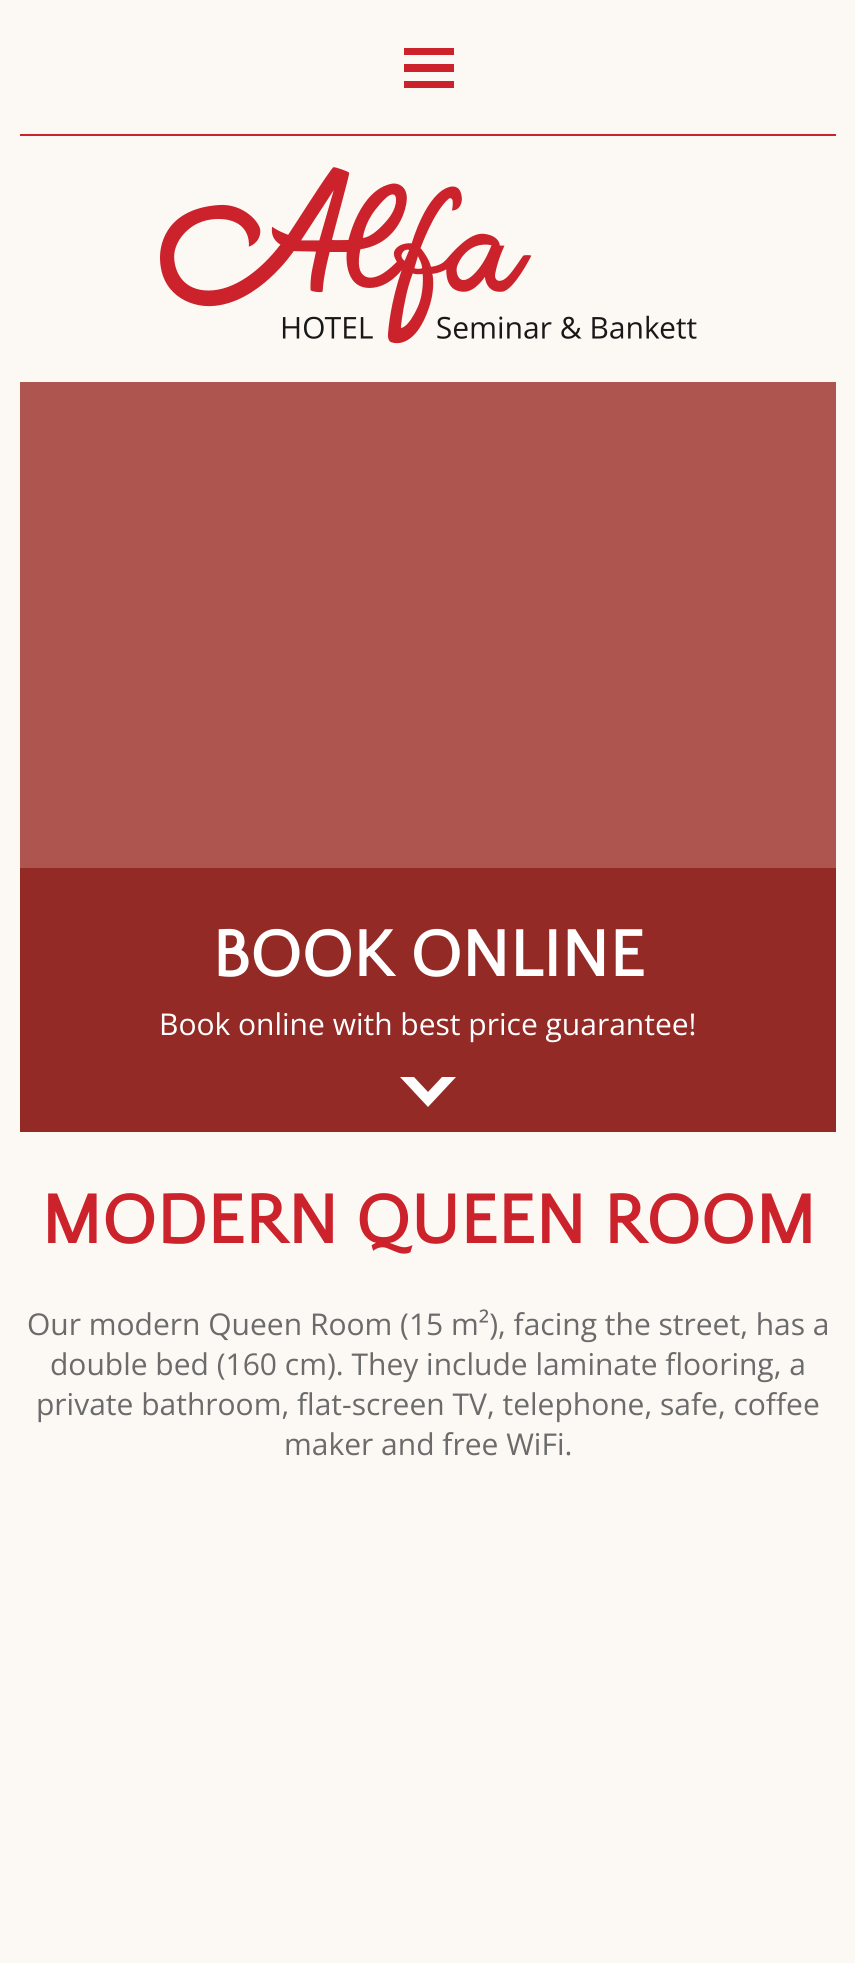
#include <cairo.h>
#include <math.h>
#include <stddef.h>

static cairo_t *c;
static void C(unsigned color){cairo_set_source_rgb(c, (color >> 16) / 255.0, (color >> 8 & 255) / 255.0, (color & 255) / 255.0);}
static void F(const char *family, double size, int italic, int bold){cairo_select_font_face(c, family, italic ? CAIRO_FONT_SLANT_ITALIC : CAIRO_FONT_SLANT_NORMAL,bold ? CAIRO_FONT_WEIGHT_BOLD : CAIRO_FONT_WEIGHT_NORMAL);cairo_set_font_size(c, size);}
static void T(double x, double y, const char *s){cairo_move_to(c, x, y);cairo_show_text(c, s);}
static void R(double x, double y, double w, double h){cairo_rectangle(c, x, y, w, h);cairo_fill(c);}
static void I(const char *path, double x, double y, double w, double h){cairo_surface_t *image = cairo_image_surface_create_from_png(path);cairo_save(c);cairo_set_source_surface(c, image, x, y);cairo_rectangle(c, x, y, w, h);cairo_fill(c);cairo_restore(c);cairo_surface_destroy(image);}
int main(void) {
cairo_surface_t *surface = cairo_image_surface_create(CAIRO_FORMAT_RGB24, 855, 1963);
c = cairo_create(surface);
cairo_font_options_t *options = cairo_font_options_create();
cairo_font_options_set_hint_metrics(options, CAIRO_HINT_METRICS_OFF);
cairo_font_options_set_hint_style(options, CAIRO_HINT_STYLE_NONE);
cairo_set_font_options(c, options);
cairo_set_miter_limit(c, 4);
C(0xfcf9f4);
cairo_paint(c);
C(0xcb222c);
R(20,134,816,2);
cairo_new_path(c);
cairo_move_to(c,404,48);
cairo_line_to(c,454,48);
cairo_line_to(c,454,55);
cairo_line_to(c,404,55);
cairo_close_path(c);
cairo_move_to(c,404,64);
cairo_line_to(c,454,64);
cairo_line_to(c,454,72);
cairo_line_to(c,404,72);
cairo_close_path(c);
cairo_move_to(c,404,81);
cairo_line_to(c,454,81);
cairo_line_to(c,454,88);
cairo_line_to(c,404,88);
cairo_close_path(c);
cairo_fill(c);
I("1.png",160,167,537,177);
C(0xae554f);
R(20,382,816,486);
C(0x942a26);
R(20,868,816,264);
F("Quattrocento Sans",68,0,1);
C(0xffffff);
T(212,976,"BOOK ONLINE");
F("Open Sans",30,0,0);
T(159,1035,"Book online with best price guarantee!");
cairo_new_path(c);
cairo_move_to(c,456,1077);
cairo_line_to(c,428,1107);
cairo_line_to(c,400,1077);
cairo_line_to(c,414,1077);
cairo_line_to(c,428,1092);
cairo_line_to(c,442,1077);
cairo_close_path(c);
cairo_fill(c);
F("Quattrocento Sans",72,0,1);
C(0xcb222c);
T(41,1243,"MODERN QUEEN ROOM");
F("Open Sans",30,0,0);
C(0x6b6b6b);
T(27,1335,"Our modern Queen Room (15 m²), facing the street, has a");
T(50,1375,"double bed (160 cm). They include laminate flooring, a");
T(36,1415,"private bathroom, flat-screen TV, telephone, safe, coffee");
T(284,1455,"maker and free WiFi.");
cairo_surface_write_to_png(surface, "o.png");
cairo_font_options_destroy(options);
cairo_destroy(c);
cairo_surface_destroy(surface);
return 0;
}
